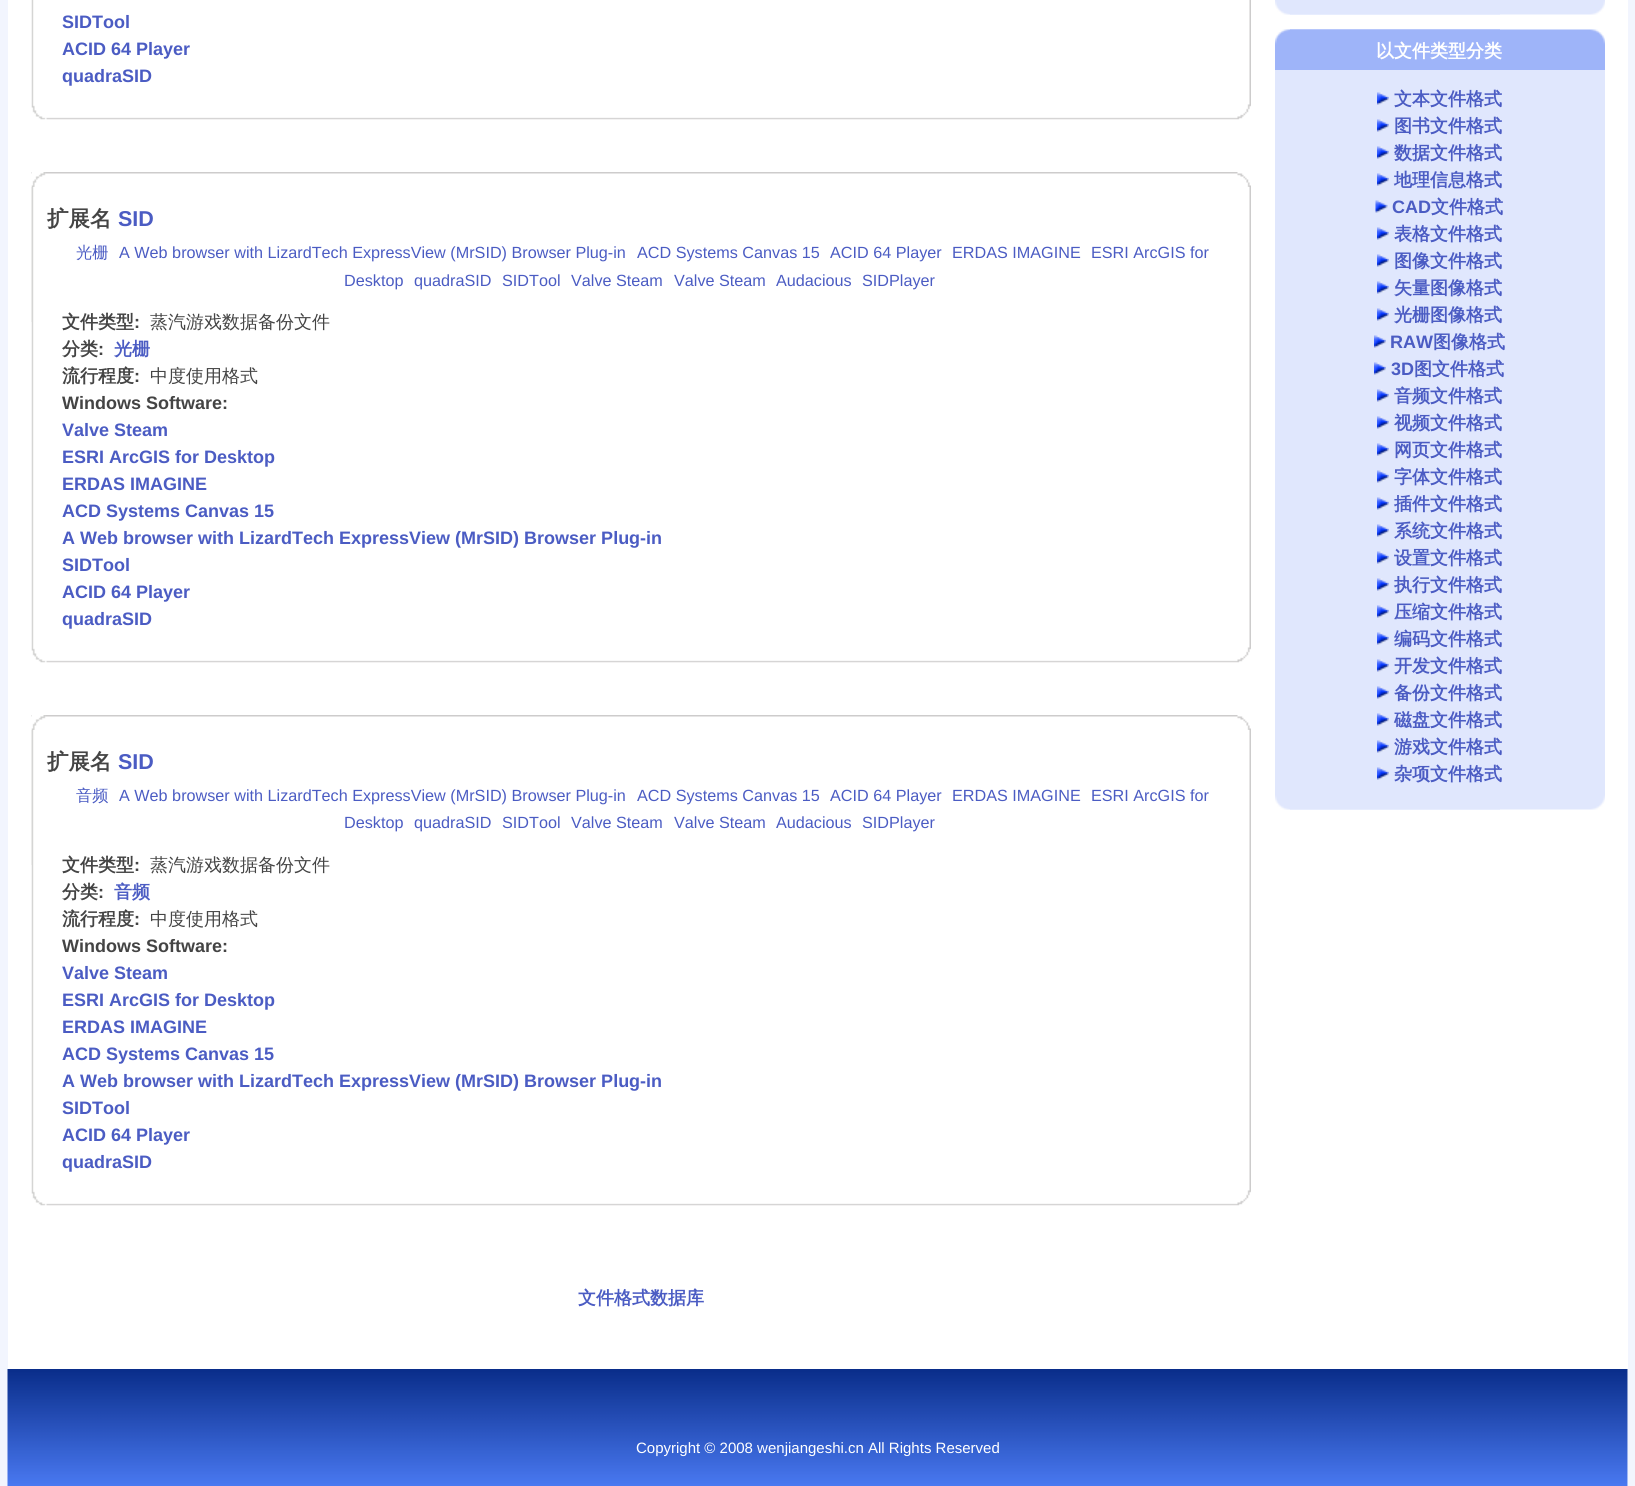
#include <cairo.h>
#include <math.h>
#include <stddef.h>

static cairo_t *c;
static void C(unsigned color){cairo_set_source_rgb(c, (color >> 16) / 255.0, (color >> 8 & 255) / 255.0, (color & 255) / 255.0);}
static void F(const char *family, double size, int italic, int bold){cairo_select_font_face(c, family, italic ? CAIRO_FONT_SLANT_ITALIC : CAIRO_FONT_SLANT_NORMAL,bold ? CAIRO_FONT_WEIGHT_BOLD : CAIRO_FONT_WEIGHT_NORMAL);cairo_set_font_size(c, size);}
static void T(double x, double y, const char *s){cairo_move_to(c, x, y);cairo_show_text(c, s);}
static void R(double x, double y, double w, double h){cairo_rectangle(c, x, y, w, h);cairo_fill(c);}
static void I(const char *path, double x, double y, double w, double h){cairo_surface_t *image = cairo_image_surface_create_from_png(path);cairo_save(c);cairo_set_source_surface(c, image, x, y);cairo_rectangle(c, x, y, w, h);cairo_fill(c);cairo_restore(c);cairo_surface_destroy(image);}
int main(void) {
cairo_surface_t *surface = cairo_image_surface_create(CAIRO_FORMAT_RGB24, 1635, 1486);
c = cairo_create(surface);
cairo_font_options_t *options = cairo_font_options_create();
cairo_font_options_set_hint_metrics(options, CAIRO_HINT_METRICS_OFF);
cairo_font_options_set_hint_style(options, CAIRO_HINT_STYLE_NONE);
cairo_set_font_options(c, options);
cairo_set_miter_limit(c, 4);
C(0xf2f5fe);
cairo_paint(c);
C(0xffffff);
R(8,0,1620,1486);
I("1.png",31,0,15,120);
I("2.png",46,0,1205,120);
F("Liberation Sans",18,0,1);
C(0x4b5cc3);
T(62,28,"SIDTool");
T(62,55,"ACID 64 Player");
T(62,82,"quadraSID");
I("3.png",31,172,1220,150);
I("4.png",31,172,15,150);
I("5.png",31,187,15,476);
I("6.png",46,187,1205,476);
F("WenQuanYi Zen Hei",21.5,0,1);
C(0x444444);
T(47,226,"扩展名");
F("Liberation Sans",21.5,0,1);
C(0x4b5cc3);
T(118,226,"SID");
F("WenQuanYi Zen Hei Medium",16.2,0,0);
T(76,258,"光栅");
F("Liberation Sans",16.2,0,0);
T(119,258,"A Web browser with LizardTech ExpressView (MrSID) Browser Plug-in");
T(637,258,"ACD Systems Canvas 15");
T(830,258,"ACID 64 Player");
T(952,258,"ERDAS IMAGINE");
T(1091,258,"ESRI ArcGIS for");
T(344,286,"Desktop");
T(414,286,"quadraSID");
T(502,286,"SIDTool");
T(571,286,"Valve Steam");
T(674,286,"Valve Steam");
T(776,286,"Audacious");
T(862,286,"SIDPlayer");
F("WenQuanYi Zen Hei",18,0,1);
C(0x444444);
T(62,328,"文件类型");
F("Liberation Sans",18,0,1);
T(134,328,":");
F("WenQuanYi Zen Hei Medium",18,0,0);
T(150,328,"蒸汽游戏数据备份文件");
F("WenQuanYi Zen Hei",18,0,1);
T(62,355,"分类");
F("Liberation Sans",18,0,1);
T(98,355,":");
F("WenQuanYi Zen Hei",18,0,1);
C(0x4b5cc3);
T(114,355,"光栅");
C(0x444444);
T(62,382,"流行程度");
F("Liberation Sans",18,0,1);
T(134,382,":");
F("WenQuanYi Zen Hei Medium",18,0,0);
T(150,382,"中度使用格式");
F("Liberation Sans",18,0,1);
T(62,409,"Windows Software:");
C(0x4b5cc3);
T(62,436,"Valve Steam");
T(62,463,"ESRI ArcGIS for Desktop");
T(62,490,"ERDAS IMAGINE");
T(62,517,"ACD Systems Canvas 15");
T(62,544,"A Web browser with LizardTech ExpressView (MrSID) Browser Plug-in");
T(62,571,"SIDTool");
T(62,598,"ACID 64 Player");
T(62,625,"quadraSID");
I("3.png",31,715,1220,150);
I("4.png",31,715,15,150);
I("5.png",31,730,15,476);
I("6.png",46,730,1205,476);
F("WenQuanYi Zen Hei",21.5,0,1);
C(0x444444);
T(47,769,"扩展名");
F("Liberation Sans",21.5,0,1);
C(0x4b5cc3);
T(118,769,"SID");
F("WenQuanYi Zen Hei Medium",16.2,0,0);
T(76,801,"音频");
F("Liberation Sans",16.2,0,0);
T(119,801,"A Web browser with LizardTech ExpressView (MrSID) Browser Plug-in");
T(637,801,"ACD Systems Canvas 15");
T(830,801,"ACID 64 Player");
T(952,801,"ERDAS IMAGINE");
T(1091,801,"ESRI ArcGIS for");
T(344,828,"Desktop");
T(414,828,"quadraSID");
T(502,828,"SIDTool");
T(571,828,"Valve Steam");
T(674,828,"Valve Steam");
T(776,828,"Audacious");
T(862,828,"SIDPlayer");
F("WenQuanYi Zen Hei",18,0,1);
C(0x444444);
T(62,871,"文件类型");
F("Liberation Sans",18,0,1);
T(134,871,":");
F("WenQuanYi Zen Hei Medium",18,0,0);
T(150,871,"蒸汽游戏数据备份文件");
F("WenQuanYi Zen Hei",18,0,1);
T(62,898,"分类");
F("Liberation Sans",18,0,1);
T(98,898,":");
F("WenQuanYi Zen Hei",18,0,1);
C(0x4b5cc3);
T(114,898,"音频");
C(0x444444);
T(62,925,"流行程度");
F("Liberation Sans",18,0,1);
T(134,925,":");
F("WenQuanYi Zen Hei Medium",18,0,0);
T(150,925,"中度使用格式");
F("Liberation Sans",18,0,1);
T(62,952,"Windows Software:");
C(0x4b5cc3);
T(62,979,"Valve Steam");
T(62,1006,"ESRI ArcGIS for Desktop");
T(62,1033,"ERDAS IMAGINE");
T(62,1060,"ACD Systems Canvas 15");
T(62,1087,"A Web browser with LizardTech ExpressView (MrSID) Browser Plug-in");
T(62,1114,"SIDTool");
T(62,1141,"ACID 64 Player");
T(62,1168,"quadraSID");
F("WenQuanYi Zen Hei",18,0,1);
T(578,1304,"文件格式数据库");
I("7.png",1290,0,315,15);
I("8.png",1275,0,225,15);
I("9.png",1290,29,315,41);
I("7.png",1290,795,315,15);
I("10.png",1275,29,225,41);
C(0xffffff);
T(1376,57,"以文件类型分类");
I("8.png",1275,795,225,15);
C(0xe0e7fd);
R(1275,70,330,725);
I("11.png",1377,92,12,13);
C(0x4b5cc3);
T(1394,105,"文本文件格式");
I("11.png",1377,119,12,13);
T(1394,132,"图书文件格式");
I("11.png",1377,146,12,13);
T(1394,159,"数据文件格式");
I("11.png",1377,173,12,13);
T(1394,186,"地理信息格式");
I("12.png",1375,200,13,13);
F("Liberation Sans",18,0,1);
T(1392,213,"CAD");
F("WenQuanYi Zen Hei",18,0,1);
T(1431,213,"文件格式");
I("11.png",1377,227,12,13);
T(1394,240,"表格文件格式");
I("11.png",1377,254,12,13);
T(1394,267,"图像文件格式");
I("11.png",1377,281,12,13);
T(1394,294,"矢量图像格式");
I("11.png",1377,308,12,13);
T(1394,321,"光栅图像格式");
I("11.png",1374,335,12,13);
F("Liberation Sans",18,0,1);
T(1390,348,"RAW");
F("WenQuanYi Zen Hei",18,0,1);
T(1433,348,"图像格式");
I("11.png",1374,362,12,13);
F("Liberation Sans",18,0,1);
T(1391,375,"3D");
F("WenQuanYi Zen Hei",18,0,1);
T(1414,375,"图文件格式");
I("11.png",1377,389,12,13);
T(1394,402,"音频文件格式");
I("11.png",1377,416,12,13);
T(1394,429,"视频文件格式");
I("11.png",1377,443,12,13);
T(1394,456,"网页文件格式");
I("11.png",1377,470,12,13);
T(1394,483,"字体文件格式");
I("11.png",1377,497,12,13);
T(1394,510,"插件文件格式");
I("11.png",1377,524,12,13);
T(1394,537,"系统文件格式");
I("11.png",1377,551,12,13);
T(1394,564,"设置文件格式");
I("11.png",1377,578,12,13);
T(1394,591,"执行文件格式");
I("11.png",1377,605,12,13);
T(1394,618,"压缩文件格式");
I("11.png",1377,632,12,13);
T(1394,645,"编码文件格式");
I("11.png",1377,659,12,13);
T(1394,672,"开发文件格式");
I("11.png",1377,686,12,13);
T(1394,699,"备份文件格式");
I("11.png",1377,713,12,13);
T(1394,726,"磁盘文件格式");
I("11.png",1377,740,12,13);
T(1394,753,"游戏文件格式");
I("11.png",1377,767,12,13);
T(1394,780,"杂项文件格式");
I("13.png",7,1369,1621,117);
F("Liberation Sans",15,0,0);
C(0xffffff);
T(636,1453,"Copyright © 2008 wenjiangeshi.cn All Rights Reserved");
cairo_surface_write_to_png(surface, "o.png");
cairo_font_options_destroy(options);
cairo_destroy(c);
cairo_surface_destroy(surface);
return 0;
}
